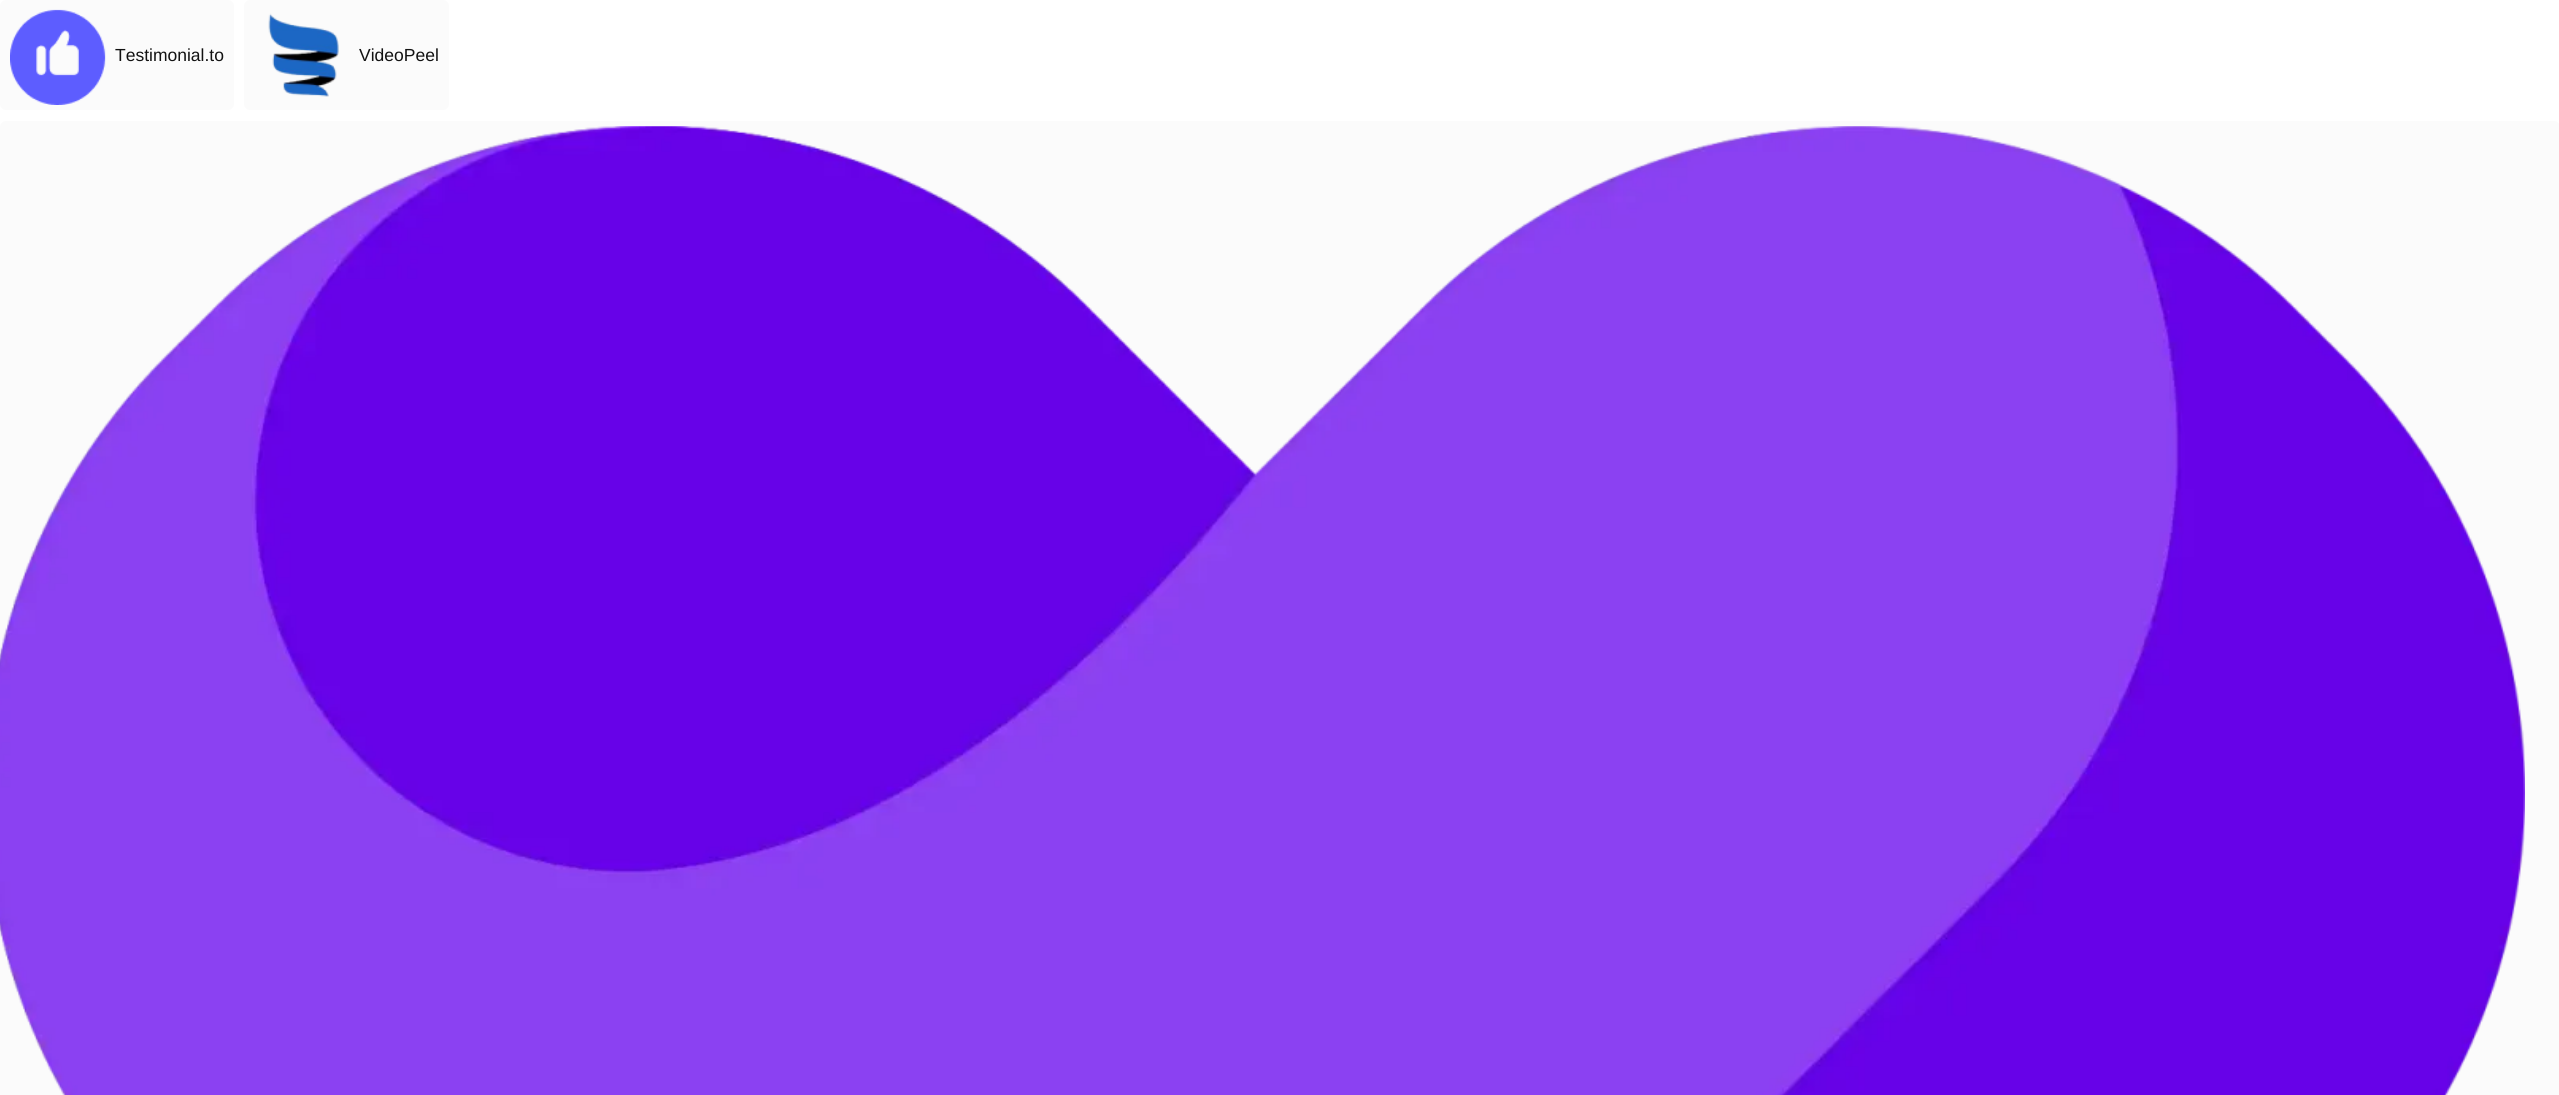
#include <cairo.h>
#include <math.h>
#include <stddef.h>

static cairo_t *c;
static void C(unsigned color){cairo_set_source_rgb(c, (color >> 16) / 255.0, (color >> 8 & 255) / 255.0, (color & 255) / 255.0);}
static void F(const char *family, double size, int italic, int bold){cairo_select_font_face(c, family, italic ? CAIRO_FONT_SLANT_ITALIC : CAIRO_FONT_SLANT_NORMAL,bold ? CAIRO_FONT_WEIGHT_BOLD : CAIRO_FONT_WEIGHT_NORMAL);cairo_set_font_size(c, size);}
static void T(double x, double y, const char *s){cairo_move_to(c, x, y);cairo_show_text(c, s);}
static void Q(double x, double y, double w, double h, double r){cairo_new_sub_path(c);cairo_arc(c, x + w - r, y + h - r, r, 0, M_PI / 2);cairo_arc(c, x + r, y + h - r, r, M_PI / 2, M_PI);cairo_arc(c, x + r, y + r, r, M_PI, 1.5 * M_PI);cairo_arc(c, x + w - r, y + r, r, 1.5 * M_PI, 2 * M_PI);cairo_close_path(c);}
static void I(const char *path, double x, double y, double w, double h){cairo_surface_t *image = cairo_image_surface_create_from_png(path);cairo_save(c);cairo_set_source_surface(c, image, x, y);cairo_rectangle(c, x, y, w, h);cairo_fill(c);cairo_restore(c);cairo_surface_destroy(image);}
int main(void) {
cairo_surface_t *surface = cairo_image_surface_create(CAIRO_FORMAT_RGB24, 2559, 1095);
c = cairo_create(surface);
cairo_font_options_t *options = cairo_font_options_create();
cairo_font_options_set_hint_metrics(options, CAIRO_HINT_METRICS_OFF);
cairo_font_options_set_hint_style(options, CAIRO_HINT_STYLE_NONE);
cairo_set_font_options(c, options);
cairo_set_miter_limit(c, 4);
C(0xffffff);
cairo_paint(c);
C(0xfbfbfb);
Q(0,0,234,110,6);
cairo_fill(c);
I("1.png",10,9,96,96);
F("Liberation Sans",17.5,0,0);
C(0x121212);
T(115,61,"Testimonial.to");
C(0xfbfbfb);
Q(244,0,205,110,6);
cairo_fill(c);
I("2.png",268,13,71,84);
C(0x121212);
T(359,61,"VideoPeel");
C(0xfbfbfb);
Q(0,121,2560,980,6);
cairo_fill(c);
I("3.png",0,126,2525,969);
cairo_surface_write_to_png(surface, "o.png");
cairo_font_options_destroy(options);
cairo_destroy(c);
cairo_surface_destroy(surface);
return 0;
}
